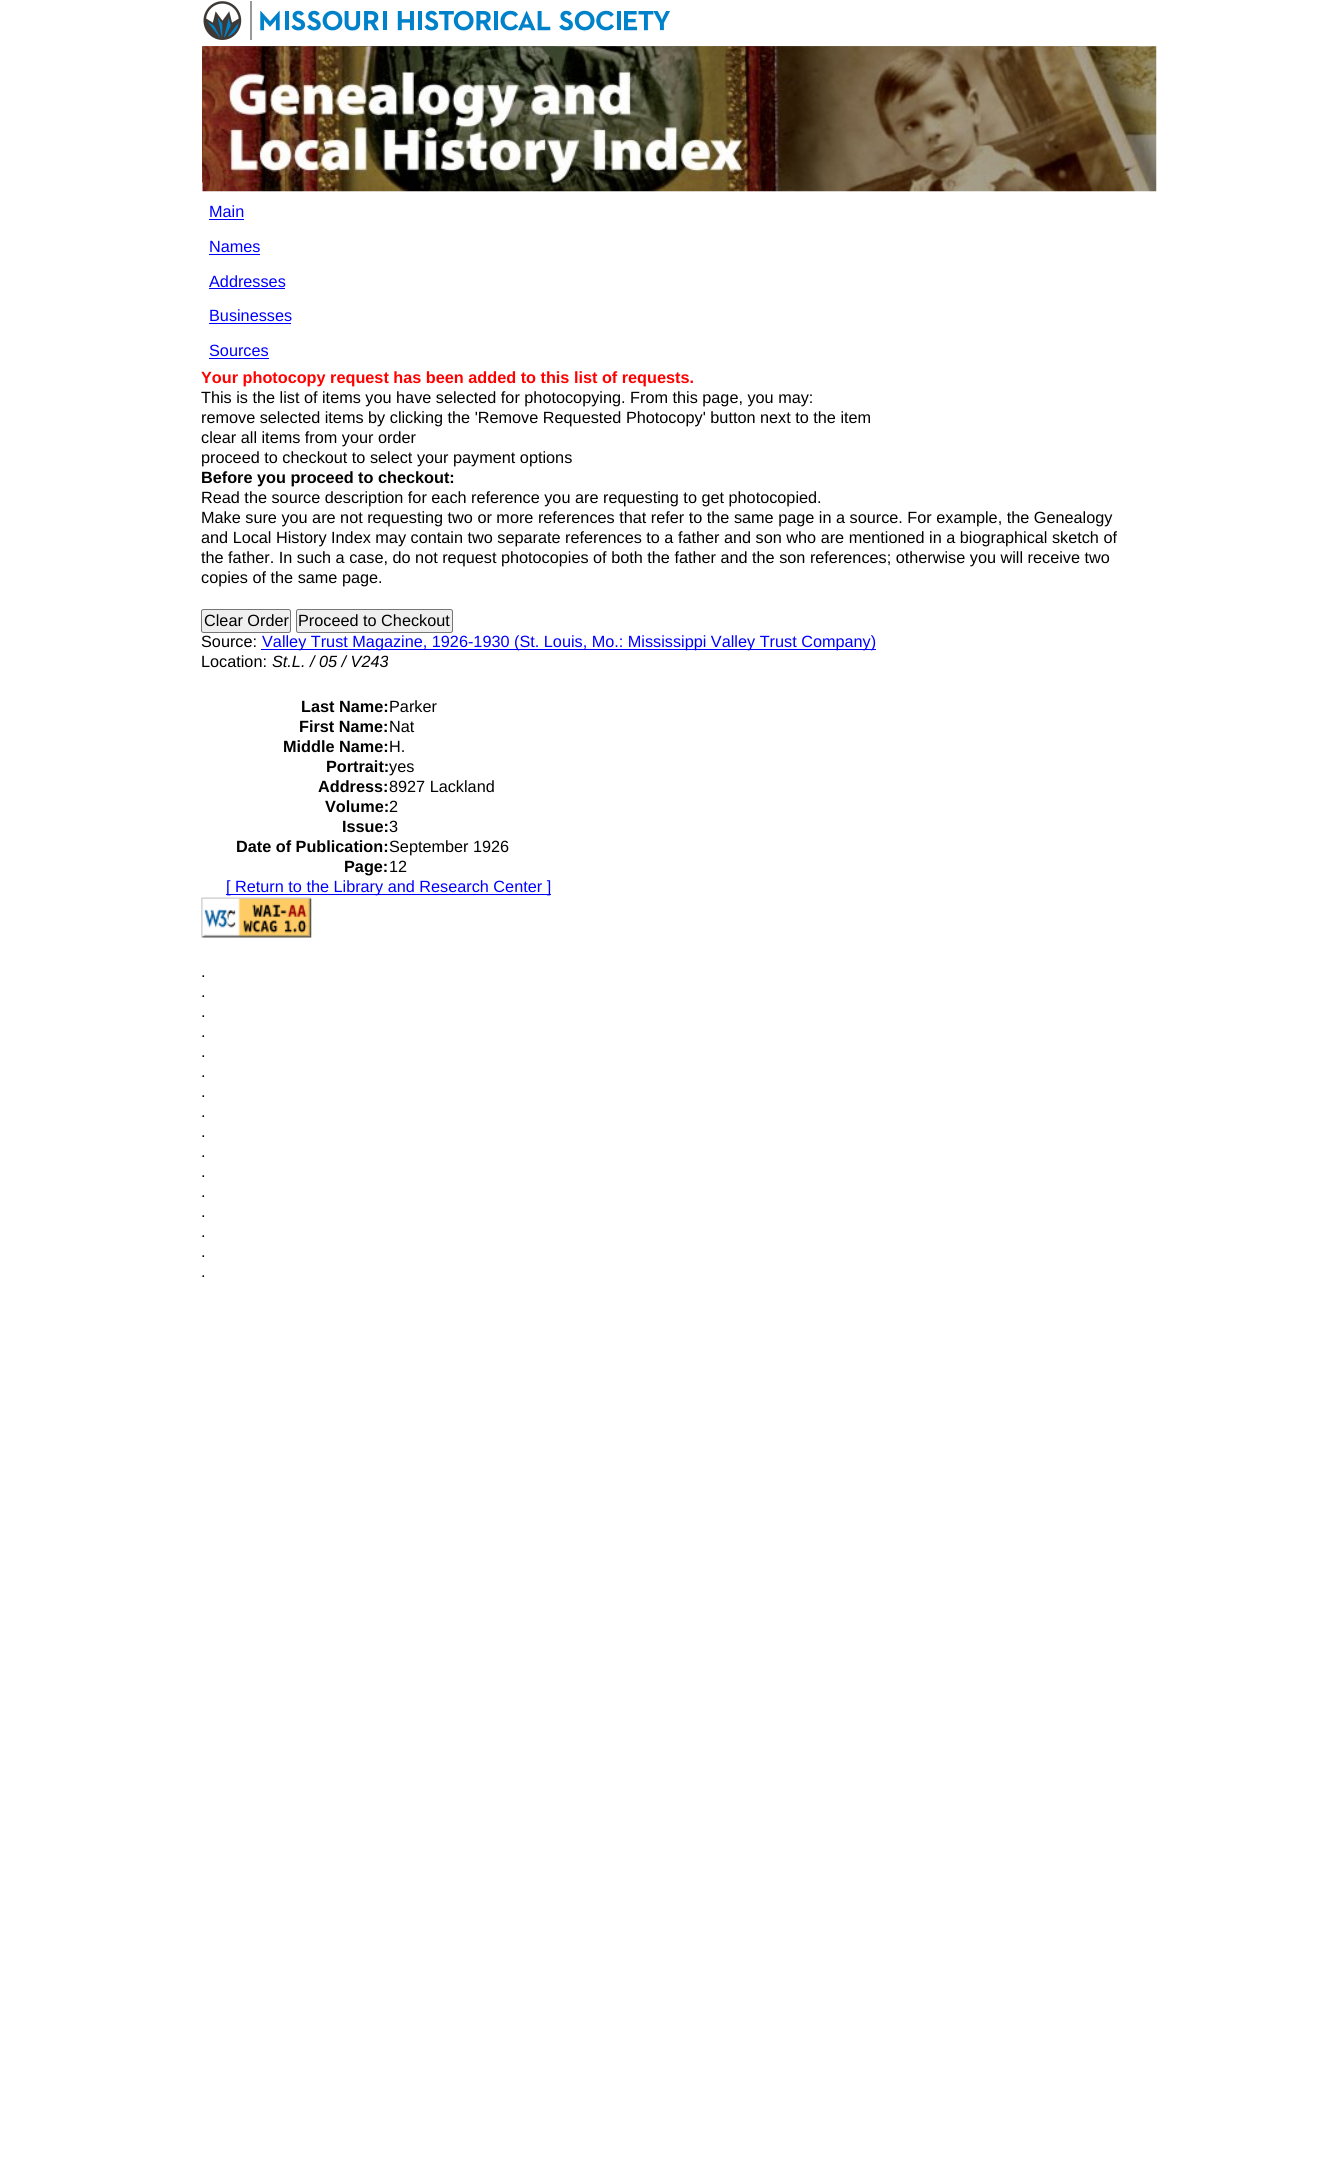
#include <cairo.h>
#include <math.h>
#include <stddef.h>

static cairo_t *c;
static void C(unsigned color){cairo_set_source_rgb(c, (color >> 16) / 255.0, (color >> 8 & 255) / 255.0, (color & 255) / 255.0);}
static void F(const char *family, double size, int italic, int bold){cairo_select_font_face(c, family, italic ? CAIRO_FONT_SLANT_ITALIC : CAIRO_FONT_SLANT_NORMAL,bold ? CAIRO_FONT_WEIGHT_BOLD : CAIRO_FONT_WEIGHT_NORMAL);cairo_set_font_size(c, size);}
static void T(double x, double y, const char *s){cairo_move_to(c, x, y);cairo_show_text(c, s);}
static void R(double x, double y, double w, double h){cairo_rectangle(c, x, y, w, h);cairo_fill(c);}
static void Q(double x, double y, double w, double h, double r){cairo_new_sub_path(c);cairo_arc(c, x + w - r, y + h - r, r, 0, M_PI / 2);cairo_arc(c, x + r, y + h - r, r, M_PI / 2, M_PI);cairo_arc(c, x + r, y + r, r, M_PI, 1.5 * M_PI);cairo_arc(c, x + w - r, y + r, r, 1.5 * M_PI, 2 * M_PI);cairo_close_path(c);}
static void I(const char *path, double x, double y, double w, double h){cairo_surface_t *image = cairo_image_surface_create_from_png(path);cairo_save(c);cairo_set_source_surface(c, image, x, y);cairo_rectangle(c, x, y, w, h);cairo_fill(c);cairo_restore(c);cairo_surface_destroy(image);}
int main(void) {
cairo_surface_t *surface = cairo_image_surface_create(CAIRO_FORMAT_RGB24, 1340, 2184);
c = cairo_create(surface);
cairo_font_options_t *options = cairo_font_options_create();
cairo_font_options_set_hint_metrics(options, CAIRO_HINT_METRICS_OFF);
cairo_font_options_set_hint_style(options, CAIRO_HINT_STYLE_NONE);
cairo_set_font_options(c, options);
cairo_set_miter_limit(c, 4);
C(0xffffff);
cairo_paint(c);
I("1.png",203,1,467,39);
I("2.png",202,46,936,137);
I("3.png",202,46,955,146);
F("Liberation Sans",16.25,0,0);
C(0x0000ff);
T(209,217,"Main");
R(209,219,35,1);
T(209,252,"Names");
R(209,254,51,1);
T(209,287,"Addresses");
R(209,288,76,1);
T(209,321,"Businesses");
R(209,323,82,1);
T(209,356,"Sources");
R(209,358,60,1);
F("Liberation Sans",16.25,0,1);
C(0xff0000);
T(201,383,"Your photocopy request has been added to this list of requests.");
F("Liberation Sans",16.25,0,0);
C(0x000000);
T(201,403,"This is the list of items you have selected for photocopying. From this page, you may:");
T(201,423,"remove selected items by clicking the 'Remove Requested Photocopy' button next to the item");
T(201,443,"clear all items from your order");
T(201,463,"proceed to checkout to select your payment options");
F("Liberation Sans",16.25,0,1);
T(201,483,"Before you proceed to checkout:");
F("Liberation Sans",16.25,0,0);
T(201,503,"Read the source description for each reference you are requesting to get photocopied.");
T(201,523,"Make sure you are not requesting two or more references that refer to the same page in a source. For example, the Genealogy");
T(201,543,"and Local History Index may contain two separate references to a father and son who are mentioned in a biographical sketch of");
T(201,563,"the father. In such a case, do not request photocopies of both the father and the son references; otherwise you will receive two");
T(201,583,"copies of the same page.");
C(0xefefef);
Q(201.5,609.5,89,23,2);
cairo_fill_preserve(c);
C(0x767676);
cairo_set_line_width(c,1);
cairo_stroke(c);
C(0x000000);
T(204,626,"Clear Order");
C(0xefefef);
Q(296.5,609.5,156,23,2);
cairo_fill_preserve(c);
C(0x767676);
cairo_stroke(c);
C(0x000000);
T(298,626,"Proceed to Checkout");
T(201,647,"Source:");
C(0x0000ff);
R(261,649,615,1);
T(262,647,"Valley Trust Magazine, 1926-1930 (St. Louis, Mo.: Mississippi Valley Trust Company)");
C(0x000000);
T(201,667,"Location:");
F("Liberation Sans",16.25,1,0);
T(272,667,"St.L. / 05 / V243");
F("Liberation Sans",16.25,0,1);
T(301,712,"Last Name:");
F("Liberation Sans",16.25,0,0);
T(389,712,"Parker");
F("Liberation Sans",16.25,0,1);
T(299,732,"First Name:");
F("Liberation Sans",16.25,0,0);
T(389,732,"Nat");
F("Liberation Sans",16.25,0,1);
T(283,752,"Middle Name:");
F("Liberation Sans",16.25,0,0);
T(389,752,"H.");
F("Liberation Sans",16.25,0,1);
T(326,772,"Portrait:");
F("Liberation Sans",16.25,0,0);
T(389,772,"yes");
F("Liberation Sans",16.25,0,1);
T(318,792,"Address:");
F("Liberation Sans",16.25,0,0);
T(389,792,"8927 Lackland");
F("Liberation Sans",16.25,0,1);
T(325,812,"Volume:");
F("Liberation Sans",16.25,0,0);
T(389,812,"2");
F("Liberation Sans",16.25,0,1);
T(342,832,"Issue:");
F("Liberation Sans",16.25,0,0);
T(389,832,"3");
F("Liberation Sans",16.25,0,1);
T(236,852,"Date of Publication:");
F("Liberation Sans",16.25,0,0);
T(389,852,"September 1926");
F("Liberation Sans",16.25,0,1);
T(344,872,"Page:");
F("Liberation Sans",16.25,0,0);
T(389,872,"12");
C(0x0000ff);
R(226,894,325,1);
T(226,892,"[ Return to the Library and Research Center ]");
I("4.png",201,897,111,41);
C(0x000000);
T(201,977,".");
T(201,997,".");
T(201,1017,".");
T(201,1037,".");
T(201,1057,".");
T(201,1077,".");
T(201,1097,".");
T(201,1117,".");
T(201,1137,".");
T(201,1157,".");
T(201,1177,".");
T(201,1197,".");
T(201,1217,".");
T(201,1237,".");
T(201,1257,".");
T(201,1277,".");
cairo_surface_write_to_png(surface, "o.png");
cairo_font_options_destroy(options);
cairo_destroy(c);
cairo_surface_destroy(surface);
return 0;
}
